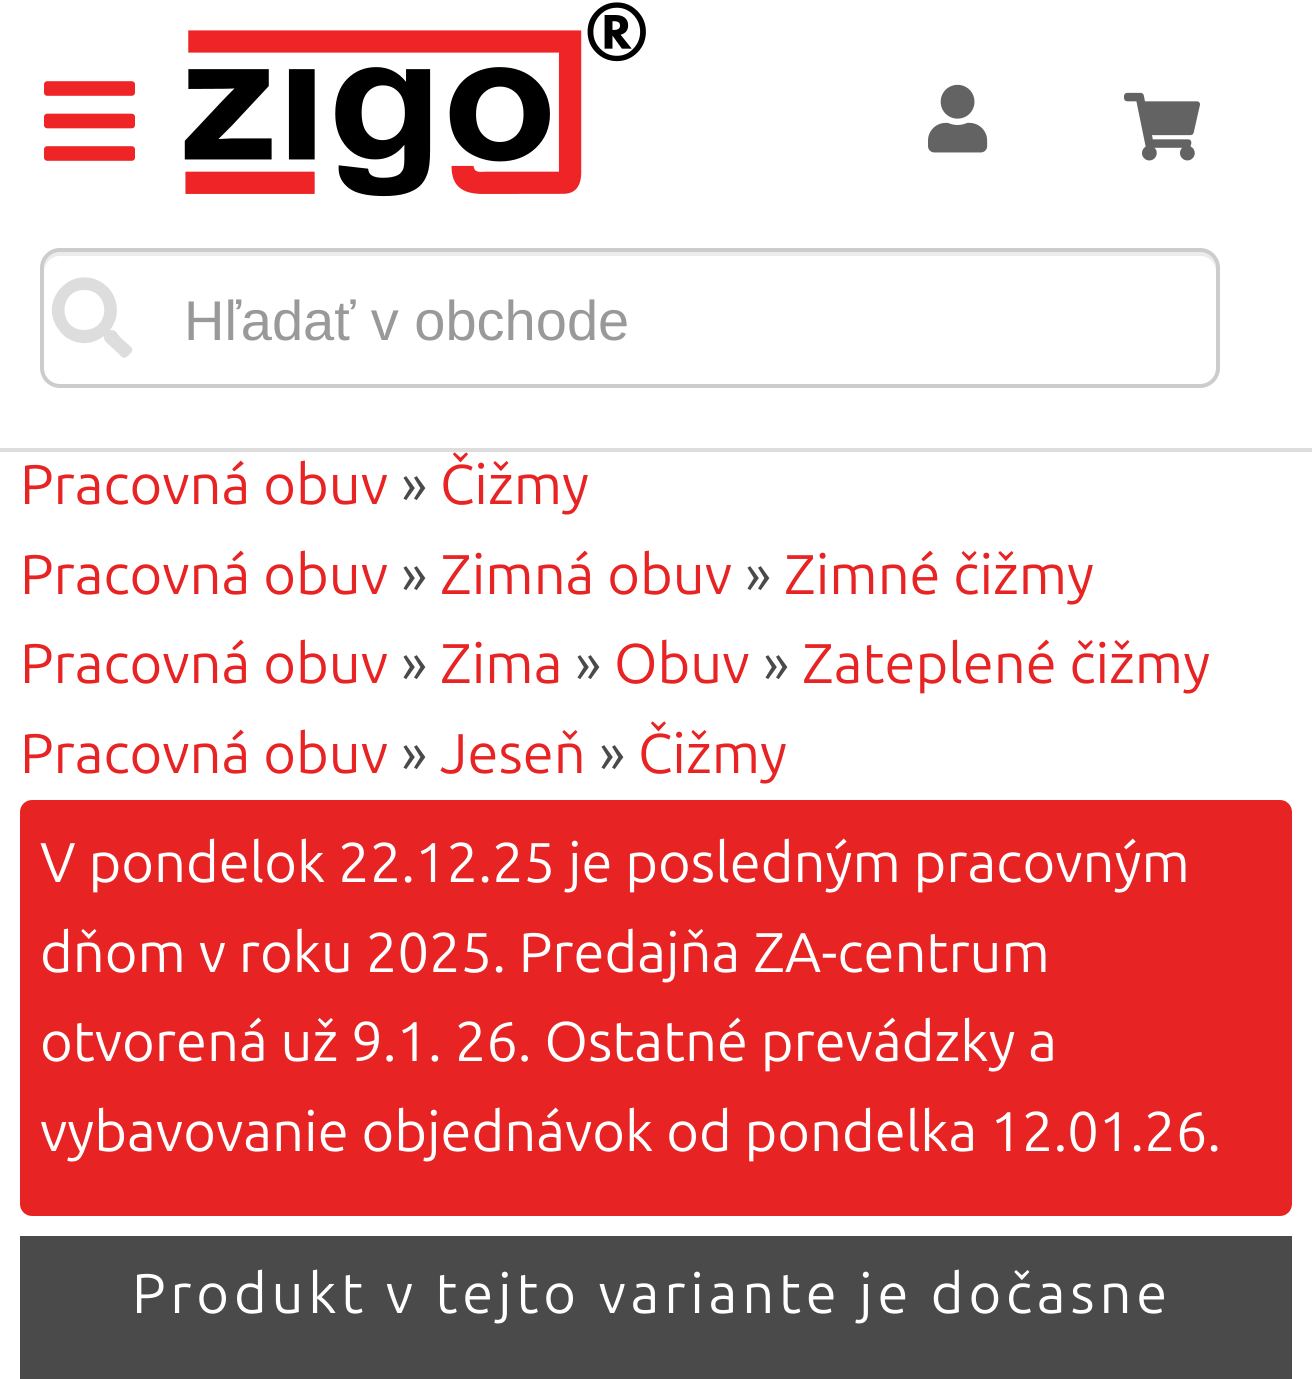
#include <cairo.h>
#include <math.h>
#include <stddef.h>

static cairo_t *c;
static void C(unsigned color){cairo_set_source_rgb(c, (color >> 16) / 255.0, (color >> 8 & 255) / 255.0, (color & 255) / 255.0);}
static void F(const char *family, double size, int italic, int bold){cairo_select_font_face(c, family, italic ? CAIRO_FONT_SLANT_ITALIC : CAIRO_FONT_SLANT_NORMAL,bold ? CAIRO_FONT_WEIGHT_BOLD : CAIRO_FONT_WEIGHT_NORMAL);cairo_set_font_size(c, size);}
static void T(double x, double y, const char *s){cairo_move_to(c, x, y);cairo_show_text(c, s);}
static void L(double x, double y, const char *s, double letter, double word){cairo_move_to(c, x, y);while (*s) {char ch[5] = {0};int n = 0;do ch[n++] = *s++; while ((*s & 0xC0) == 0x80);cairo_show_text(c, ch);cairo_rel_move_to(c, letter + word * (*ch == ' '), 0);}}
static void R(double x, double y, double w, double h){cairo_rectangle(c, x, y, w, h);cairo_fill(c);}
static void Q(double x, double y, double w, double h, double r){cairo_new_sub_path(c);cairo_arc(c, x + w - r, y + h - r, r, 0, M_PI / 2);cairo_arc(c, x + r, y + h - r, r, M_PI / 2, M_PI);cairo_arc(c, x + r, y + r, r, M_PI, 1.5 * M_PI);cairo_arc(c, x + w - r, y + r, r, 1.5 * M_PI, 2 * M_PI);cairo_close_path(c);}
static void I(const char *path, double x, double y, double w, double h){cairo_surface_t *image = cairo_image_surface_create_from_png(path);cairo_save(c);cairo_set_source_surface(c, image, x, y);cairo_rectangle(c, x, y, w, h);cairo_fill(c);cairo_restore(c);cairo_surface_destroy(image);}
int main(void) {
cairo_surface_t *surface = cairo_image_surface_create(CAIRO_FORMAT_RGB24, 1312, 1379);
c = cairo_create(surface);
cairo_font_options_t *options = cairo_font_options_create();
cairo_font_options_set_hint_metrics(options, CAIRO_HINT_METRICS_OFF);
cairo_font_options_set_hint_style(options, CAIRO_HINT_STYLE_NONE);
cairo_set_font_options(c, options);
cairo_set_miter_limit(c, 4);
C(0xffffff);
cairo_paint(c);
I("1.png",44,81,91,80);
I("2.png",184,2,462,195);
I("3.png",928,84,60,69);
I("4.png",1124,92,76,69);
C(0xdddddd);
R(0,448,1312,4);
C(0xececec);
cairo_new_path(c);
cairo_move_to(c,60,256);
cairo_line_to(c,1200,256);
cairo_curve_to(c,1209,256,1216,263,1216,272);
cairo_line_to(c,1216,268);
cairo_curve_to(c,1216,259,1209,252,1200,252);
cairo_line_to(c,60,252);
cairo_curve_to(c,51,252,44,259,44,268);
cairo_line_to(c,44,272);
cairo_curve_to(c,44,263,51,256,60,256);
cairo_close_path(c);
cairo_fill(c);
Q(42,250,1176,136,18);
C(0xcccccc);
cairo_set_line_width(c,4);
cairo_stroke(c);
C(0xdddddd);
cairo_new_path(c);
cairo_move_to(c,131,347);
cairo_line_to(c,120,337);
cairo_curve_to(c,116,332,116,330,110,330);
cairo_curve_to(c,122,315,118,292,101,282);
cairo_curve_to(c,70,264,37,302,59,330);
cairo_curve_to(c,63,336,69,340,76,342);
cairo_curve_to(c,86,345,96,342,104,336);
cairo_curve_to(c,104,341,105,341,108,344);
cairo_line_to(c,119,354);
cairo_curve_to(c,123,359,124,359,129,355);
cairo_curve_to(c,131,353,134,350,131,347);
cairo_close_path(c);
cairo_move_to(c,84,330);
cairo_curve_to(c,58,330,58,290,84,290);
cairo_curve_to(c,111,290,111,330,84,330);
cairo_close_path(c);
cairo_fill(c);
F("Liberation Sans",56,0,0);
C(0x999999);
T(184,340,"Hľadať v obchode");
F("Ubuntu",56,0,0);
C(0xe72324);
T(20,504,"Pracovná obuv");
C(0x4a4a4a);
T(401,504,"»");
C(0xe72324);
T(440,504,"Čižmy");
T(20,594,"Pracovná obuv");
C(0x4a4a4a);
T(401,594,"»");
C(0xe72324);
T(440,594,"Zimná obuv");
C(0x4a4a4a);
T(745,594,"»");
C(0xe72324);
T(784,594,"Zimné čižmy");
T(20,683,"Pracovná obuv");
C(0x4a4a4a);
T(401,683,"»");
C(0xe72324);
T(440,683,"Zima");
C(0x4a4a4a);
T(575,683,"»");
C(0xe72324);
T(614,683,"Obuv");
C(0x4a4a4a);
T(763,683,"»");
C(0xe72324);
T(802,683,"Zateplené čižmy");
T(20,773,"Pracovná obuv");
C(0x4a4a4a);
T(401,773,"»");
C(0xe72324);
T(440,773,"Jeseň");
C(0x4a4a4a);
T(599,773,"»");
C(0xe72324);
T(638,773,"Čižmy");
Q(20,800,1272,416,12);
cairo_fill(c);
C(0xffffff);
T(40,882,"V pondelok 22.12.25 je posledným pracovným");
T(40,972,"dňom v roku 2025. Predajňa ZA-centrum");
T(40,1061,"otvorená už 9.1. 26. Ostatné prevádzky a");
T(40,1151,"vybavovanie objednávok od pondelka 12.01.26.");
C(0x4a4a4a);
R(20,1236,1272,143);
C(0xffffff);
L(132,1313,"Produkt v tejto variante je dočasne",4.8,0);
cairo_surface_write_to_png(surface, "o.png");
cairo_font_options_destroy(options);
cairo_destroy(c);
cairo_surface_destroy(surface);
return 0;
}
